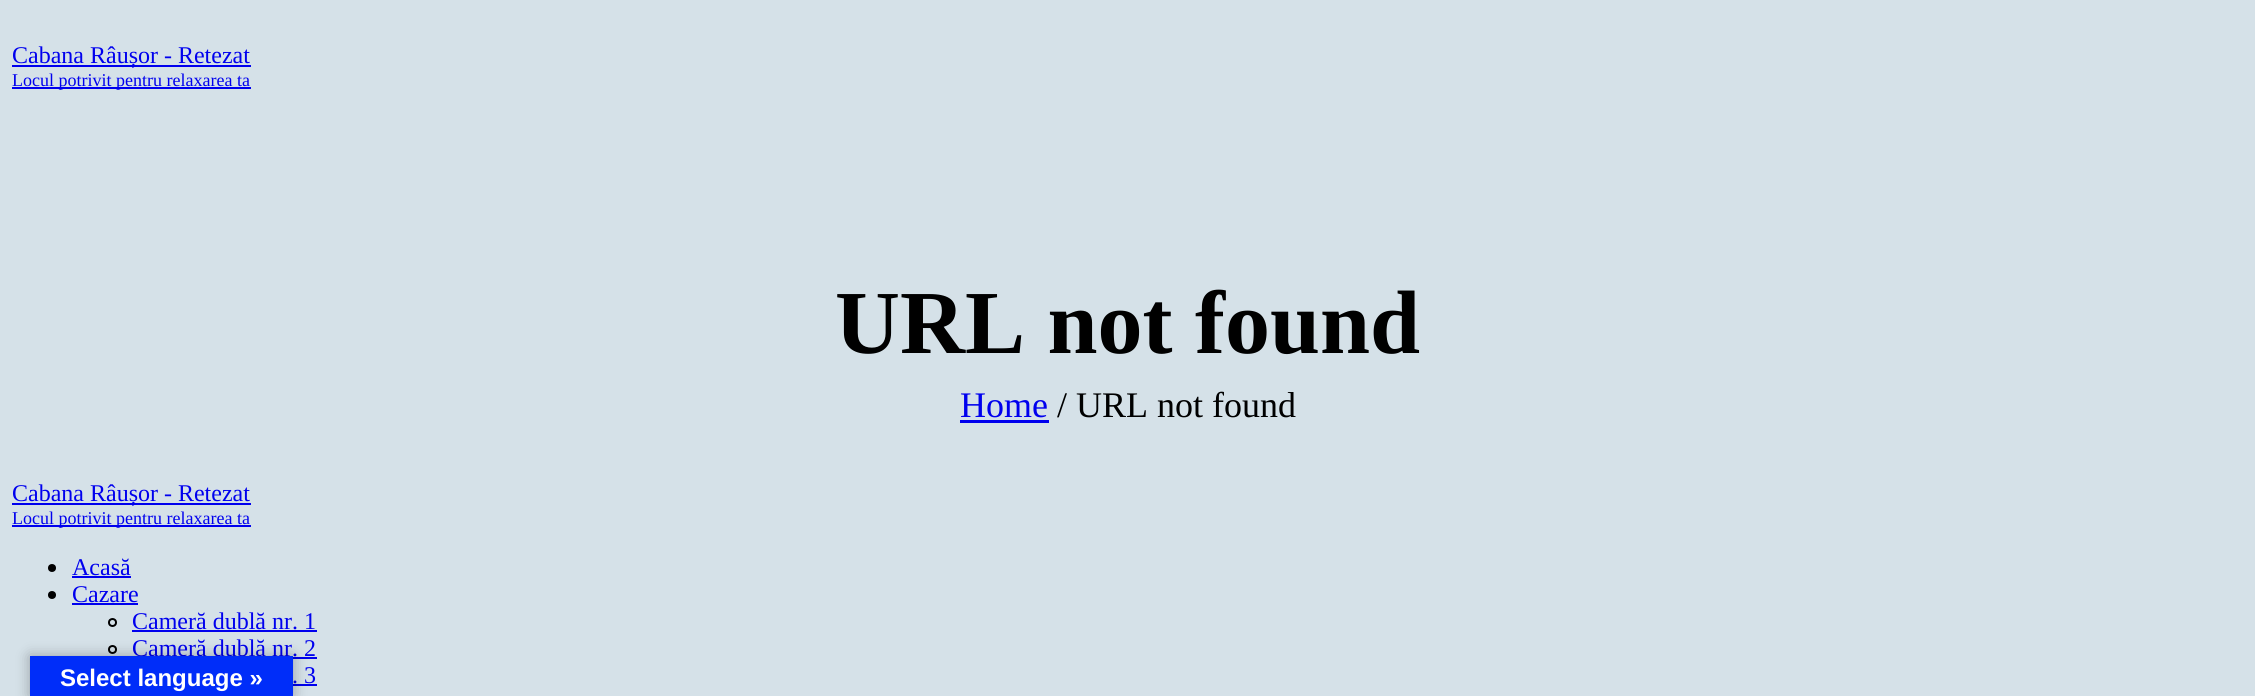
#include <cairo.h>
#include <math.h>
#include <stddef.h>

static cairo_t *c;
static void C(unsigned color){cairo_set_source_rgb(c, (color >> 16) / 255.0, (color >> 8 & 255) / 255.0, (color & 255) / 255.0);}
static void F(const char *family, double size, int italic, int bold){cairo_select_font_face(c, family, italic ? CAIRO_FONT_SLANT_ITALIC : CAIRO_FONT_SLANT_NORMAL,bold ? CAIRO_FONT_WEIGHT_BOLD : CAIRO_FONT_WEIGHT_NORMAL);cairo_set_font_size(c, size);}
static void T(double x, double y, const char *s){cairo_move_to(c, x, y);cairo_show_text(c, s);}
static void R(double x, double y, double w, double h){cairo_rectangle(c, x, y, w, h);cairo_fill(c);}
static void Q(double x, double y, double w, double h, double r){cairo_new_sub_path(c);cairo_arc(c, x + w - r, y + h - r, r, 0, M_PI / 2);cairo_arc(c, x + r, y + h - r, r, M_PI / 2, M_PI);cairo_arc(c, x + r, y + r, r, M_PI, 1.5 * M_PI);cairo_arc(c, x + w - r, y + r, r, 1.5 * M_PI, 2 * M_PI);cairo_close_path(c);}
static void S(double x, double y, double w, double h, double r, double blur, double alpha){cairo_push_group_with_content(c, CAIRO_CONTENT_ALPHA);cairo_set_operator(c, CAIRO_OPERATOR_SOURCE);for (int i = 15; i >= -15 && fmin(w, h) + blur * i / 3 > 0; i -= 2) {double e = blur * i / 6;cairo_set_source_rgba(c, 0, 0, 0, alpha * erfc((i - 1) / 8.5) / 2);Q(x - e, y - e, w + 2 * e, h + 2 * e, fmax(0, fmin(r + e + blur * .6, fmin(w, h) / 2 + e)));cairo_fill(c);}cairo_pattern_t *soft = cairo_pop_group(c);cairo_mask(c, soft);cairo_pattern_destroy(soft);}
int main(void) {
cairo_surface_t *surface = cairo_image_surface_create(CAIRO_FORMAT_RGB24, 2255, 696);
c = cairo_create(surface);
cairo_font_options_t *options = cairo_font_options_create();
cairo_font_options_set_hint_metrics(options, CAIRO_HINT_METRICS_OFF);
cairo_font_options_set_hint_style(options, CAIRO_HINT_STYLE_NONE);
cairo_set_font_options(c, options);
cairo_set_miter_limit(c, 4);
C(0xd5e1e8);
cairo_paint(c);
C(0x0000ee);
R(12,65,239,2);
F("Liberation Serif",24,0,0);
T(12,63,"Cabana Râușor - Retezat");
R(12,87,239,2);
F("Liberation Serif",18,0,0);
T(12,86,"Locul potrivit pentru relaxarea ta");
F("Liberation Serif",90,0,1);
C(0x000000);
T(835,353,"URL not found");
F("Liberation Serif",36,0,0);
C(0x0000ee);
T(960,417,"Home");
R(960,420,89,3);
C(0x000000);
T(1057,417,"/");
T(1076,417,"URL not found");
C(0x0000ee);
R(12,503,239,2);
F("Liberation Serif",24,0,0);
T(12,501,"Cabana Râușor - Retezat");
R(12,525,239,2);
F("Liberation Serif",18,0,0);
T(12,524,"Locul potrivit pentru relaxarea ta");
C(0x000000);
cairo_new_path(c);
cairo_arc(c,52,568,4,0,2 * M_PI);
cairo_fill(c);
F("Liberation Serif",24,0,0);
C(0x0000ee);
T(72,575,"Acasă");
R(72,576,59,2);
C(0x000000);
cairo_new_path(c);
cairo_arc(c,52,595,4,0,2 * M_PI);
cairo_fill(c);
C(0x0000ee);
T(72,602,"Cazare");
R(72,603,66,2);
cairo_new_path(c);
cairo_arc(c,112.5,622.5,3.5,0,2 * M_PI);
C(0x000000);
cairo_stroke(c);
C(0x0000ee);
T(132,629,"Cameră dublă nr. 1");
R(132,630,185,2);
cairo_new_path(c);
cairo_arc(c,112.5,649.5,3.5,0,2 * M_PI);
C(0x000000);
cairo_stroke(c);
C(0x0000ee);
T(132,656,"Cameră dublă nr. 2");
R(293,657,24,2);
T(292,683,". 3");
R(293,684,24,2);
C(0x000000);
S(30,656,263,40,0,7,.3);
C(0x002df9);
R(30,656,263,40);
F("Liberation Sans",24,0,1);
C(0xffffff);
T(60,686,"Select language »");
cairo_surface_write_to_png(surface, "o.png");
cairo_font_options_destroy(options);
cairo_destroy(c);
cairo_surface_destroy(surface);
return 0;
}
